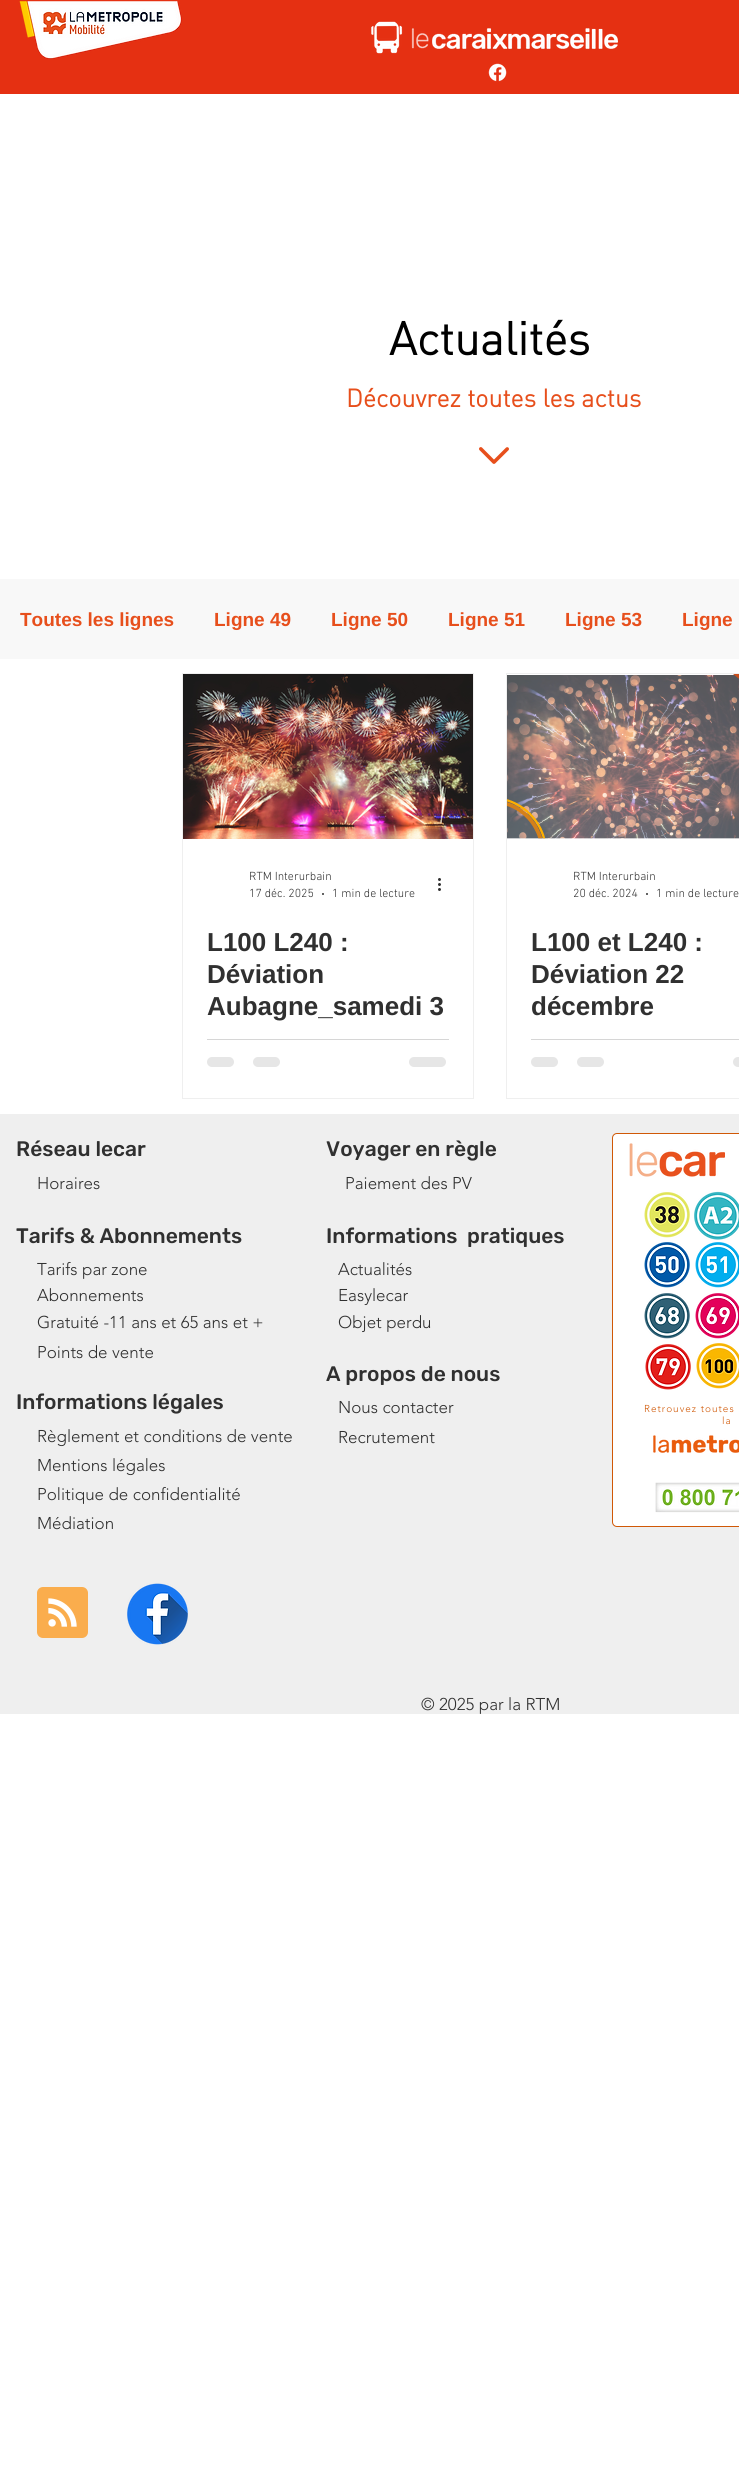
#include <cairo.h>
#include <math.h>
#include <stddef.h>

static cairo_t *c;
static void C(unsigned color){cairo_set_source_rgb(c, (color >> 16) / 255.0, (color >> 8 & 255) / 255.0, (color & 255) / 255.0);}
static void F(const char *family, double size, int italic, int bold){cairo_select_font_face(c, family, italic ? CAIRO_FONT_SLANT_ITALIC : CAIRO_FONT_SLANT_NORMAL,bold ? CAIRO_FONT_WEIGHT_BOLD : CAIRO_FONT_WEIGHT_NORMAL);cairo_set_font_size(c, size);}
static void T(double x, double y, const char *s){cairo_move_to(c, x, y);cairo_show_text(c, s);}
static void L(double x, double y, const char *s, double letter, double word){cairo_move_to(c, x, y);while (*s) {char ch[5] = {0};int n = 0;do ch[n++] = *s++; while ((*s & 0xC0) == 0x80);cairo_show_text(c, ch);cairo_rel_move_to(c, letter + word * (*ch == ' '), 0);}}
static void R(double x, double y, double w, double h){cairo_rectangle(c, x, y, w, h);cairo_fill(c);}
static void Q(double x, double y, double w, double h, double r){cairo_new_sub_path(c);cairo_arc(c, x + w - r, y + h - r, r, 0, M_PI / 2);cairo_arc(c, x + r, y + h - r, r, M_PI / 2, M_PI);cairo_arc(c, x + r, y + r, r, M_PI, 1.5 * M_PI);cairo_arc(c, x + w - r, y + r, r, 1.5 * M_PI, 2 * M_PI);cairo_close_path(c);}
static void I(const char *path, double x, double y, double w, double h){cairo_surface_t *image = cairo_image_surface_create_from_png(path);cairo_save(c);cairo_set_source_surface(c, image, x, y);cairo_rectangle(c, x, y, w, h);cairo_fill(c);cairo_restore(c);cairo_surface_destroy(image);}
int main(void) {
cairo_surface_t *surface = cairo_image_surface_create(CAIRO_FORMAT_RGB24, 739, 2481);
c = cairo_create(surface);
cairo_font_options_t *options = cairo_font_options_create();
cairo_font_options_set_hint_metrics(options, CAIRO_HINT_METRICS_OFF);
cairo_font_options_set_hint_style(options, CAIRO_HINT_STYLE_NONE);
cairo_set_font_options(c, options);
cairo_set_miter_limit(c, 4);
C(0xffffff);
cairo_paint(c);
C(0xe53012);
R(0,0,739,94);
I("1.png",19,1,163,58);
I("2.png",371,21,32,33);
I("3.png",411,28,207,21);
I("4.png",488,63,19,19);
F("DIN",46,0,1);
C(0x000000);
T(389,355,"Actualités");
F("DIN",25,0,1);
C(0xe74f1c);
T(346,407,"Découvrez toutes les actus");
I("5.png",479,447,30,17);
C(0xf8f8f8);
R(0,579,739,80);
F("Liberation Sans",19,0,1);
C(0xe74f1c);
T(20,626,"Toutes les lignes");
T(214,626,"Ligne 49");
T(331,626,"Ligne 50");
T(448,626,"Ligne 51");
T(565,626,"Ligne 53");
T(682,626,"Ligne");
cairo_rectangle(c,182.5,673.5,291,425);
C(0xefefef);
cairo_set_line_width(c,1);
cairo_stroke(c);
I("6.png",183,674,290,165);
F("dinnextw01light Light",12,0,0);
C(0x303030);
T(249,880,"RTM Interurbain");
T(249,897,"17 déc. 2025");
cairo_new_path(c);
cairo_arc(c,323,894,1,0,2 * M_PI);
cairo_fill(c);
T(332,897,"1 min de lecture");
I("7.png",438,878,3,13);
F("Liberation Sans",26,0,1);
T(207,951,"L100 L240 :");
T(207,983,"Déviation");
T(207,1015,"Aubagne_samedi 3");
C(0xd6d6d6);
R(207,1039,242,1);
C(0xe6e6e6);
Q(207,1057,27,10,5);
cairo_fill(c);
Q(253,1057,27,10,5);
cairo_fill(c);
Q(409,1057,37,10,5);
cairo_fill(c);
cairo_rectangle(c,506.5,673.5,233,425);
C(0xefefef);
cairo_stroke(c);
I("8.png",507,674,232,165);
F("dinnextw01light Light",12,0,0);
C(0x303030);
T(573,880,"RTM Interurbain");
T(573,897,"20 déc. 2024");
cairo_new_path(c);
cairo_arc(c,647,894,1,0,2 * M_PI);
cairo_fill(c);
T(656,897,"1 min de lecture");
F("Liberation Sans",26,0,1);
T(531,951,"L100 et L240 :");
T(531,983,"Déviation 22");
T(531,1015,"décembre");
C(0xd6d6d6);
R(531,1039,208,1);
C(0xe6e6e6);
Q(531,1057,27,10,5);
cairo_fill(c);
Q(577,1057,27,10,5);
cairo_fill(c);
Q(733,1057,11,10,5);
cairo_fill(c);
C(0xefefef);
R(0,1114,739,600);
F("Rubik Medium",21,0,0);
C(0x303030);
T(16,1156,"Réseau lecar");
T(326,1156,"Voyager en règle");
F("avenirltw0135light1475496 Light",17,0,0);
T(345,1189,"Paiement des PV");
T(37,1189,"Horaires");
F("Rubik Medium",21,0,0);
T(16,1243,"Tarifs & Abonnements");
T(326,1243,"Informations  pratiques");
F("avenirltw0135light1475496 Light",17,0,0);
T(37,1275,"Tarifs par zone");
T(338,1275,"Actualités");
T(37,1301,"Abonnements");
T(338,1301,"Easylecar");
T(37,1328,"Gratuité -11 ans et 65 ans et +");
T(338,1328,"Objet perdu");
T(37,1358,"Points de vente");
F("Rubik Medium",21,0,0);
T(326,1381,"A propos de nous");
T(16,1409,"Informations légales");
F("avenirltw0135light1475496 Light",17,0,0);
T(338,1413,"Nous contacter");
C(0xffffff);
Q(612.5,1133.5,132,393,4.5);
cairo_fill_preserve(c);
C(0xd05806);
cairo_stroke(c);
I("9.png",629,1143,96,34);
I("10.png",644,1192,46,46);
I("11.png",694,1191,45,49);
I("12.png",644,1242,46,46);
I("13.png",695,1242,44,46);
I("14.png",644,1293,46,46);
I("15.png",695,1293,44,46);
I("16.png",645,1344,46,46);
I("17.png",696,1343,43,46);
F("avenirltw0135light1475496 Light",10,0,0);
L(644,1412,"Retrouvez toutes",1,0);
L(722,1424,"la",1,0);
I("18.png",653,1435,86,18);
I("19.png",655,1482,84,31);
F("avenirltw0135light1475496 Light",17,0,0);
C(0x303030);
T(37,1442,"Règlement et conditions de vente");
T(37,1471,"Mentions légales");
T(37,1500,"Politique de confidentialité");
T(37,1529,"Médiation");
T(338,1443,"Recrutement");
I("20.png",37,1587,51,51);
I("21.png",127,1583,61,62);
T(421,1710,"© 2025 par la RTM");
cairo_surface_write_to_png(surface, "o.png");
cairo_font_options_destroy(options);
cairo_destroy(c);
cairo_surface_destroy(surface);
return 0;
}
